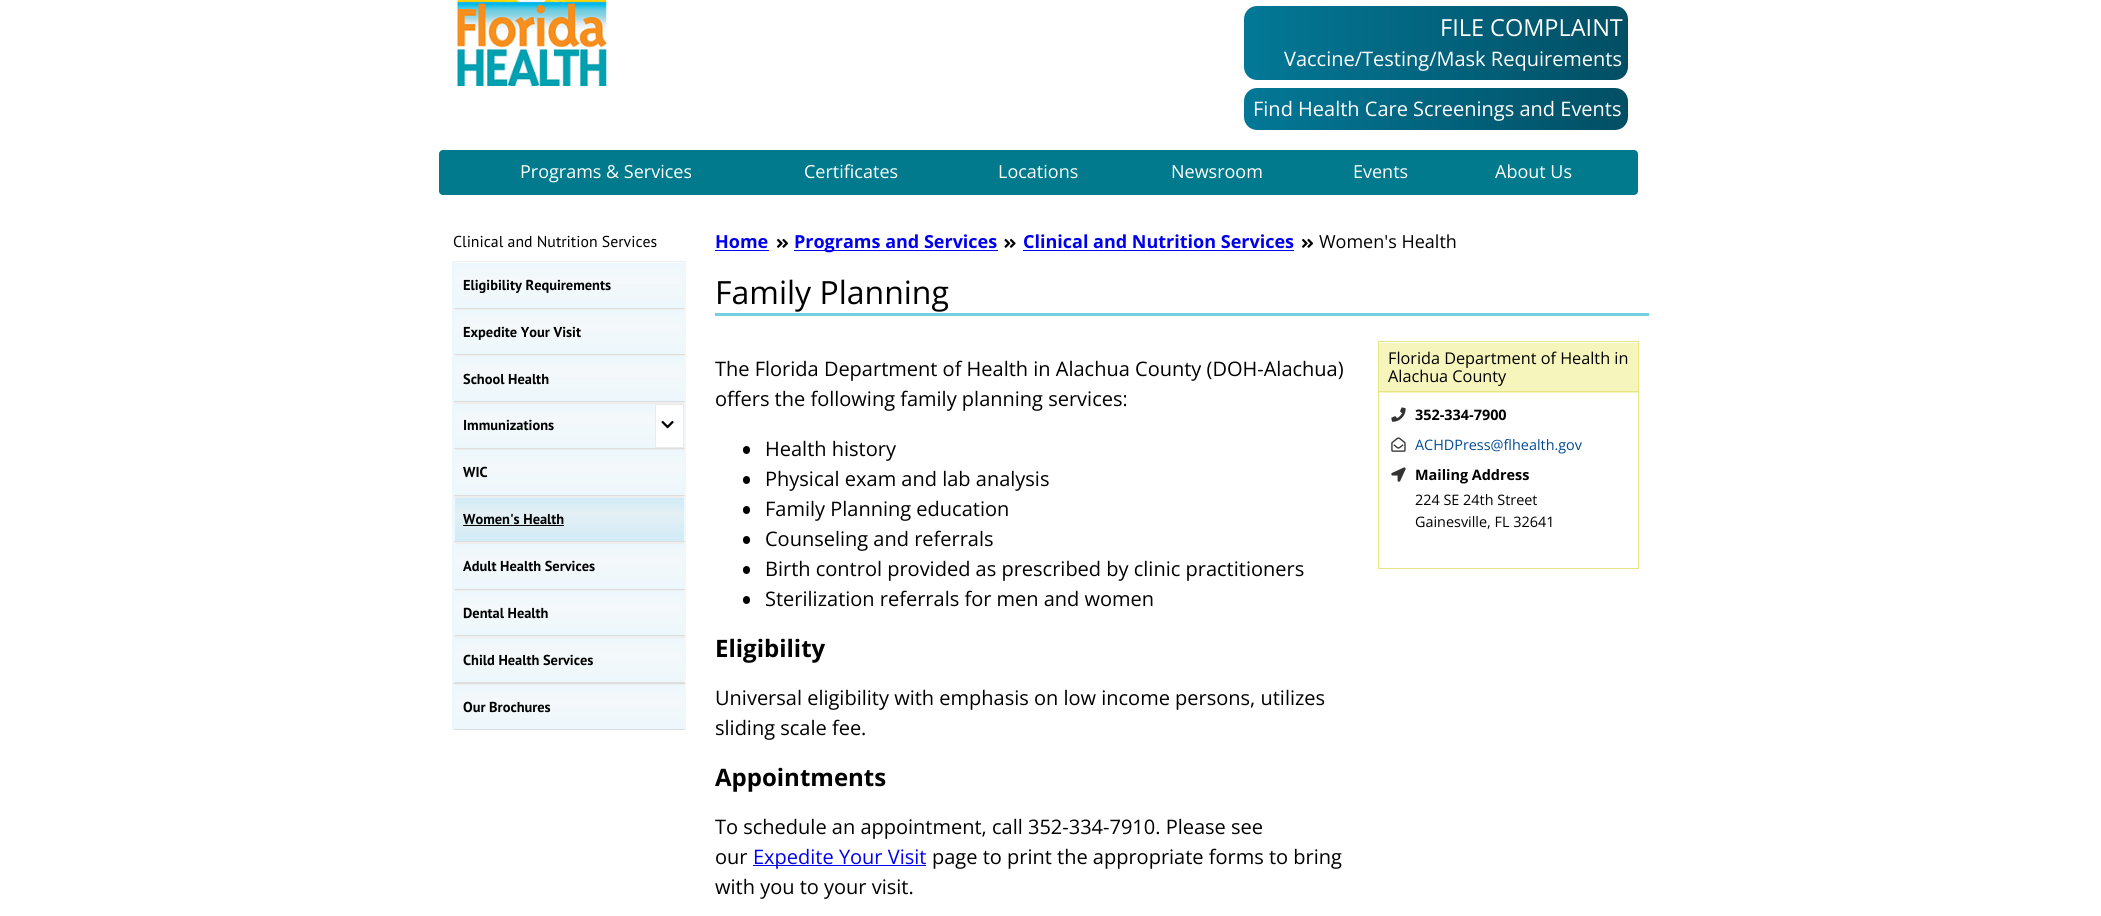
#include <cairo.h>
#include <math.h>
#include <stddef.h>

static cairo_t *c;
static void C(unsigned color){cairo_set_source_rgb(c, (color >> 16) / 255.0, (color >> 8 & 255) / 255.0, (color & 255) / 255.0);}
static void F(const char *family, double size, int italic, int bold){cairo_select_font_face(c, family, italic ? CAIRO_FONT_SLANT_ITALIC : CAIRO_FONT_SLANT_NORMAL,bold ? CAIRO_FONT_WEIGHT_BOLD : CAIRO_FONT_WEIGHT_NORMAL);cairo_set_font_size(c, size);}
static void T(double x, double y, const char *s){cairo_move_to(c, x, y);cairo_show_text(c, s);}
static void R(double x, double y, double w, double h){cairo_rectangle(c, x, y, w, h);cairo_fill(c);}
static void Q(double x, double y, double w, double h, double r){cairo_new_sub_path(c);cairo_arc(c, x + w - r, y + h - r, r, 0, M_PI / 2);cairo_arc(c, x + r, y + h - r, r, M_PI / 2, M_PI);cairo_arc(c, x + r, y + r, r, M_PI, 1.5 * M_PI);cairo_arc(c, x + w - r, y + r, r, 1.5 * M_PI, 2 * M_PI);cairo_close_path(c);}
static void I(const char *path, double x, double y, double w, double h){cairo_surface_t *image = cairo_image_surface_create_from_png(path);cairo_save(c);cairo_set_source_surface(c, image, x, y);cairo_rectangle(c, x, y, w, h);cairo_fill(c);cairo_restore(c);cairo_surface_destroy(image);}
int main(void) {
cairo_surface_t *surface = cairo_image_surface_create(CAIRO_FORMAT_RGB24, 2101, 916);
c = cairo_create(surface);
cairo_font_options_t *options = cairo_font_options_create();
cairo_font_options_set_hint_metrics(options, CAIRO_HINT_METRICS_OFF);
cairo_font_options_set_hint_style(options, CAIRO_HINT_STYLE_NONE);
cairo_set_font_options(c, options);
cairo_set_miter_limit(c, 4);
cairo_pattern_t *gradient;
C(0xffffff);
cairo_paint(c);
I("1.png",457,0,150,86);
gradient = cairo_pattern_create_linear(1244,43,1628,43);
cairo_pattern_add_color_stop_rgba(gradient,0,0.012,0.471,0.592,1);
cairo_pattern_add_color_stop_rgba(gradient,1,0.008,0.31,0.392,1);
cairo_set_source(c,gradient);
cairo_pattern_destroy(gradient);
Q(1244,6,384,74,13);
cairo_fill(c);
F("Open Sans",23.5,0,0);
C(0xffffff);
T(1440,36,"FILE COMPLAINT");
F("Open Sans",20,0,0);
T(1284,66,"Vaccine/Testing/Mask Requirements");
gradient = cairo_pattern_create_linear(1244,109,1628,109);
cairo_pattern_add_color_stop_rgba(gradient,0,0.012,0.471,0.592,1);
cairo_pattern_add_color_stop_rgba(gradient,1,0.008,0.31,0.392,1);
cairo_set_source(c,gradient);
cairo_pattern_destroy(gradient);
Q(1244,88,384,42,13);
cairo_fill(c);
C(0xffffff);
T(1253,116,"Find Health Care Screenings and Events");
C(0x007a8c);
Q(439,150,1199,45,4);
cairo_fill(c);
F("Open Sans",18,0,0);
C(0xffffff);
T(520,178,"Programs & Services");
T(804,178,"Certificates");
T(998,178,"Locations");
T(1171,178,"Newsroom");
T(1353,178,"Events");
T(1495,178,"About Us");
F("PT Sans",15.8,0,0);
C(0x000000);
T(453,247,"Clinical and Nutrition Services");
gradient = cairo_pattern_create_linear(569,263,569,308);
cairo_pattern_add_color_stop_rgba(gradient,0,0.925,0.969,0.988,1);
cairo_pattern_add_color_stop_rgba(gradient,.35,0.957,0.973,0.98,1);
cairo_pattern_add_color_stop_rgba(gradient,1,0.925,0.969,0.988,1);
cairo_set_source(c,gradient);
cairo_pattern_destroy(gradient);
R(455,263,229,45);
C(0xeeeeee);
cairo_new_path(c);
cairo_move_to(c,452,261);
cairo_line_to(c,686,261);
cairo_line_to(c,684,262);
cairo_line_to(c,455,262);
cairo_close_path(c);
cairo_fill(c);
C(0xedf8fd);
cairo_new_path(c);
cairo_move_to(c,686,261);
cairo_line_to(c,686,309);
cairo_line_to(c,684,308);
cairo_line_to(c,684,262);
cairo_close_path(c);
cairo_fill(c);
C(0xdddddd);
cairo_new_path(c);
cairo_move_to(c,686,309);
cairo_line_to(c,452,309);
cairo_line_to(c,455,308);
cairo_line_to(c,684,308);
cairo_close_path(c);
cairo_fill(c);
C(0xedf8fd);
cairo_new_path(c);
cairo_move_to(c,452,309);
cairo_line_to(c,452,261);
cairo_line_to(c,455,262);
cairo_line_to(c,455,308);
cairo_close_path(c);
cairo_fill(c);
F("PT Sans",14.4,0,1);
C(0x000000);
T(463,290,"Eligibility Requirements");
gradient = cairo_pattern_create_linear(569,310,569,354);
cairo_pattern_add_color_stop_rgba(gradient,0,0.925,0.969,0.988,1);
cairo_pattern_add_color_stop_rgba(gradient,.35,0.957,0.973,0.98,1);
cairo_pattern_add_color_stop_rgba(gradient,1,0.925,0.969,0.988,1);
cairo_set_source(c,gradient);
cairo_pattern_destroy(gradient);
R(455,310,229,44);
C(0xeeeeee);
cairo_new_path(c);
cairo_move_to(c,452,309);
cairo_line_to(c,686,309);
cairo_line_to(c,684,310);
cairo_line_to(c,455,310);
cairo_close_path(c);
cairo_fill(c);
C(0xedf8fd);
cairo_new_path(c);
cairo_move_to(c,686,309);
cairo_line_to(c,686,355);
cairo_line_to(c,684,354);
cairo_line_to(c,684,310);
cairo_close_path(c);
cairo_fill(c);
C(0xdddddd);
cairo_new_path(c);
cairo_move_to(c,686,355);
cairo_line_to(c,452,355);
cairo_line_to(c,455,354);
cairo_line_to(c,684,354);
cairo_close_path(c);
cairo_fill(c);
C(0xedf8fd);
cairo_new_path(c);
cairo_move_to(c,452,355);
cairo_line_to(c,452,309);
cairo_line_to(c,455,310);
cairo_line_to(c,455,354);
cairo_close_path(c);
cairo_fill(c);
C(0x000000);
T(463,337,"Expedite Your Visit");
gradient = cairo_pattern_create_linear(569,356,569,401);
cairo_pattern_add_color_stop_rgba(gradient,0,0.925,0.969,0.988,1);
cairo_pattern_add_color_stop_rgba(gradient,.35,0.957,0.973,0.98,1);
cairo_pattern_add_color_stop_rgba(gradient,1,0.925,0.969,0.988,1);
cairo_set_source(c,gradient);
cairo_pattern_destroy(gradient);
R(455,356,229,45);
C(0xeeeeee);
cairo_new_path(c);
cairo_move_to(c,452,355);
cairo_line_to(c,686,355);
cairo_line_to(c,684,356);
cairo_line_to(c,455,356);
cairo_close_path(c);
cairo_fill(c);
C(0xedf8fd);
cairo_new_path(c);
cairo_move_to(c,686,355);
cairo_line_to(c,686,402);
cairo_line_to(c,684,401);
cairo_line_to(c,684,356);
cairo_close_path(c);
cairo_fill(c);
C(0xdddddd);
cairo_new_path(c);
cairo_move_to(c,686,402);
cairo_line_to(c,452,402);
cairo_line_to(c,455,401);
cairo_line_to(c,684,401);
cairo_close_path(c);
cairo_fill(c);
C(0xedf8fd);
cairo_new_path(c);
cairo_move_to(c,452,402);
cairo_line_to(c,452,355);
cairo_line_to(c,455,356);
cairo_line_to(c,455,401);
cairo_close_path(c);
cairo_fill(c);
C(0x000000);
T(463,384,"School Health");
gradient = cairo_pattern_create_linear(569,404,569,448);
cairo_pattern_add_color_stop_rgba(gradient,0,0.925,0.969,0.988,1);
cairo_pattern_add_color_stop_rgba(gradient,.35,0.957,0.973,0.98,1);
cairo_pattern_add_color_stop_rgba(gradient,1,0.925,0.969,0.988,1);
cairo_set_source(c,gradient);
cairo_pattern_destroy(gradient);
R(455,404,200,44);
C(0xeeeeee);
cairo_new_path(c);
cairo_move_to(c,452,402);
cairo_line_to(c,686,402);
cairo_line_to(c,684,404);
cairo_line_to(c,455,404);
cairo_close_path(c);
cairo_fill(c);
C(0xedf8fd);
cairo_new_path(c);
cairo_move_to(c,686,402);
cairo_line_to(c,686,449);
cairo_line_to(c,684,448);
cairo_line_to(c,684,404);
cairo_close_path(c);
cairo_fill(c);
C(0xdddddd);
cairo_new_path(c);
cairo_move_to(c,686,449);
cairo_line_to(c,452,449);
cairo_line_to(c,455,448);
cairo_line_to(c,684,448);
cairo_close_path(c);
cairo_fill(c);
C(0xedf8fd);
cairo_new_path(c);
cairo_move_to(c,452,449);
cairo_line_to(c,452,402);
cairo_line_to(c,455,404);
cairo_line_to(c,455,448);
cairo_close_path(c);
cairo_fill(c);
C(0x000000);
T(463,430,"Immunizations");
cairo_rectangle(c,655.5,404.5,28,43);
C(0xebebeb);
cairo_set_line_width(c,1);
cairo_stroke(c);
I("2.png",661,420,13,9);
gradient = cairo_pattern_create_linear(569,450,569,495);
cairo_pattern_add_color_stop_rgba(gradient,0,0.925,0.969,0.988,1);
cairo_pattern_add_color_stop_rgba(gradient,.35,0.957,0.973,0.98,1);
cairo_pattern_add_color_stop_rgba(gradient,1,0.925,0.969,0.988,1);
cairo_set_source(c,gradient);
cairo_pattern_destroy(gradient);
R(455,450,229,45);
C(0xeeeeee);
cairo_new_path(c);
cairo_move_to(c,452,449);
cairo_line_to(c,686,449);
cairo_line_to(c,684,450);
cairo_line_to(c,455,450);
cairo_close_path(c);
cairo_fill(c);
C(0xedf8fd);
cairo_new_path(c);
cairo_move_to(c,686,449);
cairo_line_to(c,686,496);
cairo_line_to(c,684,495);
cairo_line_to(c,684,450);
cairo_close_path(c);
cairo_fill(c);
C(0xdddddd);
cairo_new_path(c);
cairo_move_to(c,686,496);
cairo_line_to(c,452,496);
cairo_line_to(c,455,495);
cairo_line_to(c,684,495);
cairo_close_path(c);
cairo_fill(c);
C(0xedf8fd);
cairo_new_path(c);
cairo_move_to(c,452,496);
cairo_line_to(c,452,449);
cairo_line_to(c,455,450);
cairo_line_to(c,455,495);
cairo_close_path(c);
cairo_fill(c);
C(0x000000);
T(463,477,"WIC");
C(0xeeeeee);
cairo_new_path(c);
cairo_move_to(c,452,496);
cairo_line_to(c,686,496);
cairo_line_to(c,684,498);
cairo_line_to(c,455,498);
cairo_close_path(c);
cairo_fill(c);
C(0xedf8fd);
cairo_new_path(c);
cairo_move_to(c,686,496);
cairo_line_to(c,686,542);
cairo_line_to(c,684,541);
cairo_line_to(c,684,498);
cairo_close_path(c);
cairo_fill(c);
C(0xdddddd);
cairo_new_path(c);
cairo_move_to(c,686,542);
cairo_line_to(c,452,542);
cairo_line_to(c,455,541);
cairo_line_to(c,684,541);
cairo_close_path(c);
cairo_fill(c);
C(0xedf8fd);
cairo_new_path(c);
cairo_move_to(c,452,542);
cairo_line_to(c,452,496);
cairo_line_to(c,455,498);
cairo_line_to(c,455,541);
cairo_close_path(c);
cairo_fill(c);
gradient = cairo_pattern_create_linear(569,498,569,541);
cairo_pattern_add_color_stop_rgba(gradient,0,0.82,0.925,0.969,1);
cairo_pattern_add_color_stop_rgba(gradient,.35,0.894,0.937,0.957,1);
cairo_pattern_add_color_stop_rgba(gradient,1,0.82,0.925,0.969,1);
cairo_set_source(c,gradient);
cairo_pattern_destroy(gradient);
R(455,498,229,43);
C(0x000000);
T(463,524,"Women's Health");
R(463,525,101,1);
gradient = cairo_pattern_create_linear(569,544,569,589);
cairo_pattern_add_color_stop_rgba(gradient,0,0.925,0.969,0.988,1);
cairo_pattern_add_color_stop_rgba(gradient,.35,0.957,0.973,0.98,1);
cairo_pattern_add_color_stop_rgba(gradient,1,0.925,0.969,0.988,1);
cairo_set_source(c,gradient);
cairo_pattern_destroy(gradient);
R(455,544,229,45);
C(0xeeeeee);
cairo_new_path(c);
cairo_move_to(c,452,542);
cairo_line_to(c,686,542);
cairo_line_to(c,684,544);
cairo_line_to(c,455,544);
cairo_close_path(c);
cairo_fill(c);
C(0xedf8fd);
cairo_new_path(c);
cairo_move_to(c,686,542);
cairo_line_to(c,686,590);
cairo_line_to(c,684,589);
cairo_line_to(c,684,544);
cairo_close_path(c);
cairo_fill(c);
C(0xdddddd);
cairo_new_path(c);
cairo_move_to(c,686,590);
cairo_line_to(c,452,590);
cairo_line_to(c,455,589);
cairo_line_to(c,684,589);
cairo_close_path(c);
cairo_fill(c);
C(0xedf8fd);
cairo_new_path(c);
cairo_move_to(c,452,590);
cairo_line_to(c,452,542);
cairo_line_to(c,455,544);
cairo_line_to(c,455,589);
cairo_close_path(c);
cairo_fill(c);
C(0x000000);
T(463,571,"Adult Health Services");
gradient = cairo_pattern_create_linear(569,591,569,635);
cairo_pattern_add_color_stop_rgba(gradient,0,0.925,0.969,0.988,1);
cairo_pattern_add_color_stop_rgba(gradient,.35,0.957,0.973,0.98,1);
cairo_pattern_add_color_stop_rgba(gradient,1,0.925,0.969,0.988,1);
cairo_set_source(c,gradient);
cairo_pattern_destroy(gradient);
R(455,591,229,44);
C(0xeeeeee);
cairo_new_path(c);
cairo_move_to(c,452,590);
cairo_line_to(c,686,590);
cairo_line_to(c,684,591);
cairo_line_to(c,455,591);
cairo_close_path(c);
cairo_fill(c);
C(0xedf8fd);
cairo_new_path(c);
cairo_move_to(c,686,590);
cairo_line_to(c,686,636);
cairo_line_to(c,684,635);
cairo_line_to(c,684,591);
cairo_close_path(c);
cairo_fill(c);
C(0xdddddd);
cairo_new_path(c);
cairo_move_to(c,686,636);
cairo_line_to(c,452,636);
cairo_line_to(c,455,635);
cairo_line_to(c,684,635);
cairo_close_path(c);
cairo_fill(c);
C(0xedf8fd);
cairo_new_path(c);
cairo_move_to(c,452,636);
cairo_line_to(c,452,590);
cairo_line_to(c,455,591);
cairo_line_to(c,455,635);
cairo_close_path(c);
cairo_fill(c);
C(0x000000);
T(463,618,"Dental Health");
gradient = cairo_pattern_create_linear(569,638,569,683);
cairo_pattern_add_color_stop_rgba(gradient,0,0.925,0.969,0.988,1);
cairo_pattern_add_color_stop_rgba(gradient,.35,0.957,0.973,0.98,1);
cairo_pattern_add_color_stop_rgba(gradient,1,0.925,0.969,0.988,1);
cairo_set_source(c,gradient);
cairo_pattern_destroy(gradient);
R(455,638,229,44);
C(0xeeeeee);
cairo_new_path(c);
cairo_move_to(c,452,636);
cairo_line_to(c,686,636);
cairo_line_to(c,684,638);
cairo_line_to(c,455,638);
cairo_close_path(c);
cairo_fill(c);
C(0xedf8fd);
cairo_new_path(c);
cairo_move_to(c,686,636);
cairo_line_to(c,686,684);
cairo_line_to(c,684,682);
cairo_line_to(c,684,638);
cairo_close_path(c);
cairo_fill(c);
C(0xdddddd);
cairo_new_path(c);
cairo_move_to(c,686,684);
cairo_line_to(c,452,684);
cairo_line_to(c,455,682);
cairo_line_to(c,684,682);
cairo_close_path(c);
cairo_fill(c);
C(0xedf8fd);
cairo_new_path(c);
cairo_move_to(c,452,684);
cairo_line_to(c,452,636);
cairo_line_to(c,455,638);
cairo_line_to(c,455,682);
cairo_close_path(c);
cairo_fill(c);
C(0x000000);
T(463,665,"Child Health Services");
gradient = cairo_pattern_create_linear(569,685,569,729);
cairo_pattern_add_color_stop_rgba(gradient,0,0.925,0.969,0.988,1);
cairo_pattern_add_color_stop_rgba(gradient,.35,0.957,0.973,0.98,1);
cairo_pattern_add_color_stop_rgba(gradient,1,0.925,0.969,0.988,1);
cairo_set_source(c,gradient);
cairo_pattern_destroy(gradient);
R(455,685,229,44);
C(0xeeeeee);
cairo_new_path(c);
cairo_move_to(c,452,684);
cairo_line_to(c,686,684);
cairo_line_to(c,684,685);
cairo_line_to(c,455,685);
cairo_close_path(c);
cairo_fill(c);
C(0xedf8fd);
cairo_new_path(c);
cairo_move_to(c,686,684);
cairo_line_to(c,686,730);
cairo_line_to(c,684,729);
cairo_line_to(c,684,685);
cairo_close_path(c);
cairo_fill(c);
C(0xdddddd);
cairo_new_path(c);
cairo_move_to(c,686,730);
cairo_line_to(c,452,730);
cairo_line_to(c,455,729);
cairo_line_to(c,684,729);
cairo_close_path(c);
cairo_fill(c);
C(0xedf8fd);
cairo_new_path(c);
cairo_move_to(c,452,730);
cairo_line_to(c,452,684);
cairo_line_to(c,455,685);
cairo_line_to(c,455,729);
cairo_close_path(c);
cairo_fill(c);
C(0x000000);
T(463,712,"Our Brochures");
F("Open Sans",18,0,1);
C(0x0000ee);
T(715,248,"Home");
R(715,250,54,1);
I("3.png",777,238,12,10);
R(794,250,204,1);
T(794,248,"Programs and Services");
I("4.png",1004,238,12,10);
T(1023,248,"Clinical and Nutrition Services");
R(1023,250,271,1);
I("3.png",1302,238,12,10);
F("Open Sans",18,0,0);
C(0x000000);
T(1319,248,"Women's Health");
C(0x76cee1);
R(715,313,934,3);
F("Open Sans",32,0,0);
C(0x000000);
T(715,304,"Family Planning");
F("Open Sans",20,0,0);
T(715,376,"The Florida Department of Health in Alachua County (DOH-Alachua)");
T(715,406,"offers the following family planning services:");
Q(743,446,7,8,3.5);
cairo_fill(c);
T(765,456,"Health history");
Q(743,476,7,8,3.5);
cairo_fill(c);
T(765,486,"Physical exam and lab analysis");
Q(743,506,7,8,3.5);
cairo_fill(c);
T(765,516,"Family Planning education");
Q(743,536,7,8,3.5);
cairo_fill(c);
T(765,546,"Counseling and referrals");
Q(743,566,7,8,3.5);
cairo_fill(c);
T(765,576,"Birth control provided as prescribed by clinic practitioners");
Q(743,596,7,8,3.5);
cairo_fill(c);
T(765,606,"Sterilization referrals for men and women");
F("Open Sans",24,0,1);
T(715,657,"Eligibility");
F("Open Sans",20,0,0);
T(715,705,"Universal eligibility with emphasis on low income persons, utilizes");
T(715,735,"sliding scale fee.");
F("Open Sans",24,0,1);
T(715,786,"Appointments");
F("Open Sans",20,0,0);
T(715,834,"To schedule an appointment, call 352-334-7910. Please see");
T(715,864,"our");
C(0x0000ee);
R(753,865,173,1);
T(753,864,"Expedite Your Visit");
C(0x000000);
T(932,864,"page to print the appropriate forms to bring");
T(715,894,"with you to your visit.");
cairo_rectangle(c,1378.5,341.5,260,227);
C(0xe5e583);
cairo_stroke(c);
C(0xf6f5bc);
R(1379,343,259,50);
C(0xe5e583);
R(1379,391,259,1);
F("Open Sans",16.25,0,0);
C(0x000000);
T(1388,364,"Florida Department of Health in");
T(1388,382,"Alachua County");
I("5.png",1391,407,15,15);
F("Open Sans",14.4,0,1);
T(1415,420,"352-334-7900");
I("6.png",1391,437,15,15);
F("Open Sans",14.4,0,0);
C(0x004c97);
T(1415,450,"ACHDPress@flhealth.gov");
I("7.png",1391,467,15,15);
F("Open Sans",14.4,0,1);
C(0x000000);
T(1415,480,"Mailing Address");
F("Open Sans",14.4,0,0);
T(1415,505,"224 SE 24th Street");
T(1415,527,"Gainesville, FL 32641");
cairo_surface_write_to_png(surface, "o.png");
cairo_font_options_destroy(options);
cairo_destroy(c);
cairo_surface_destroy(surface);
return 0;
}
